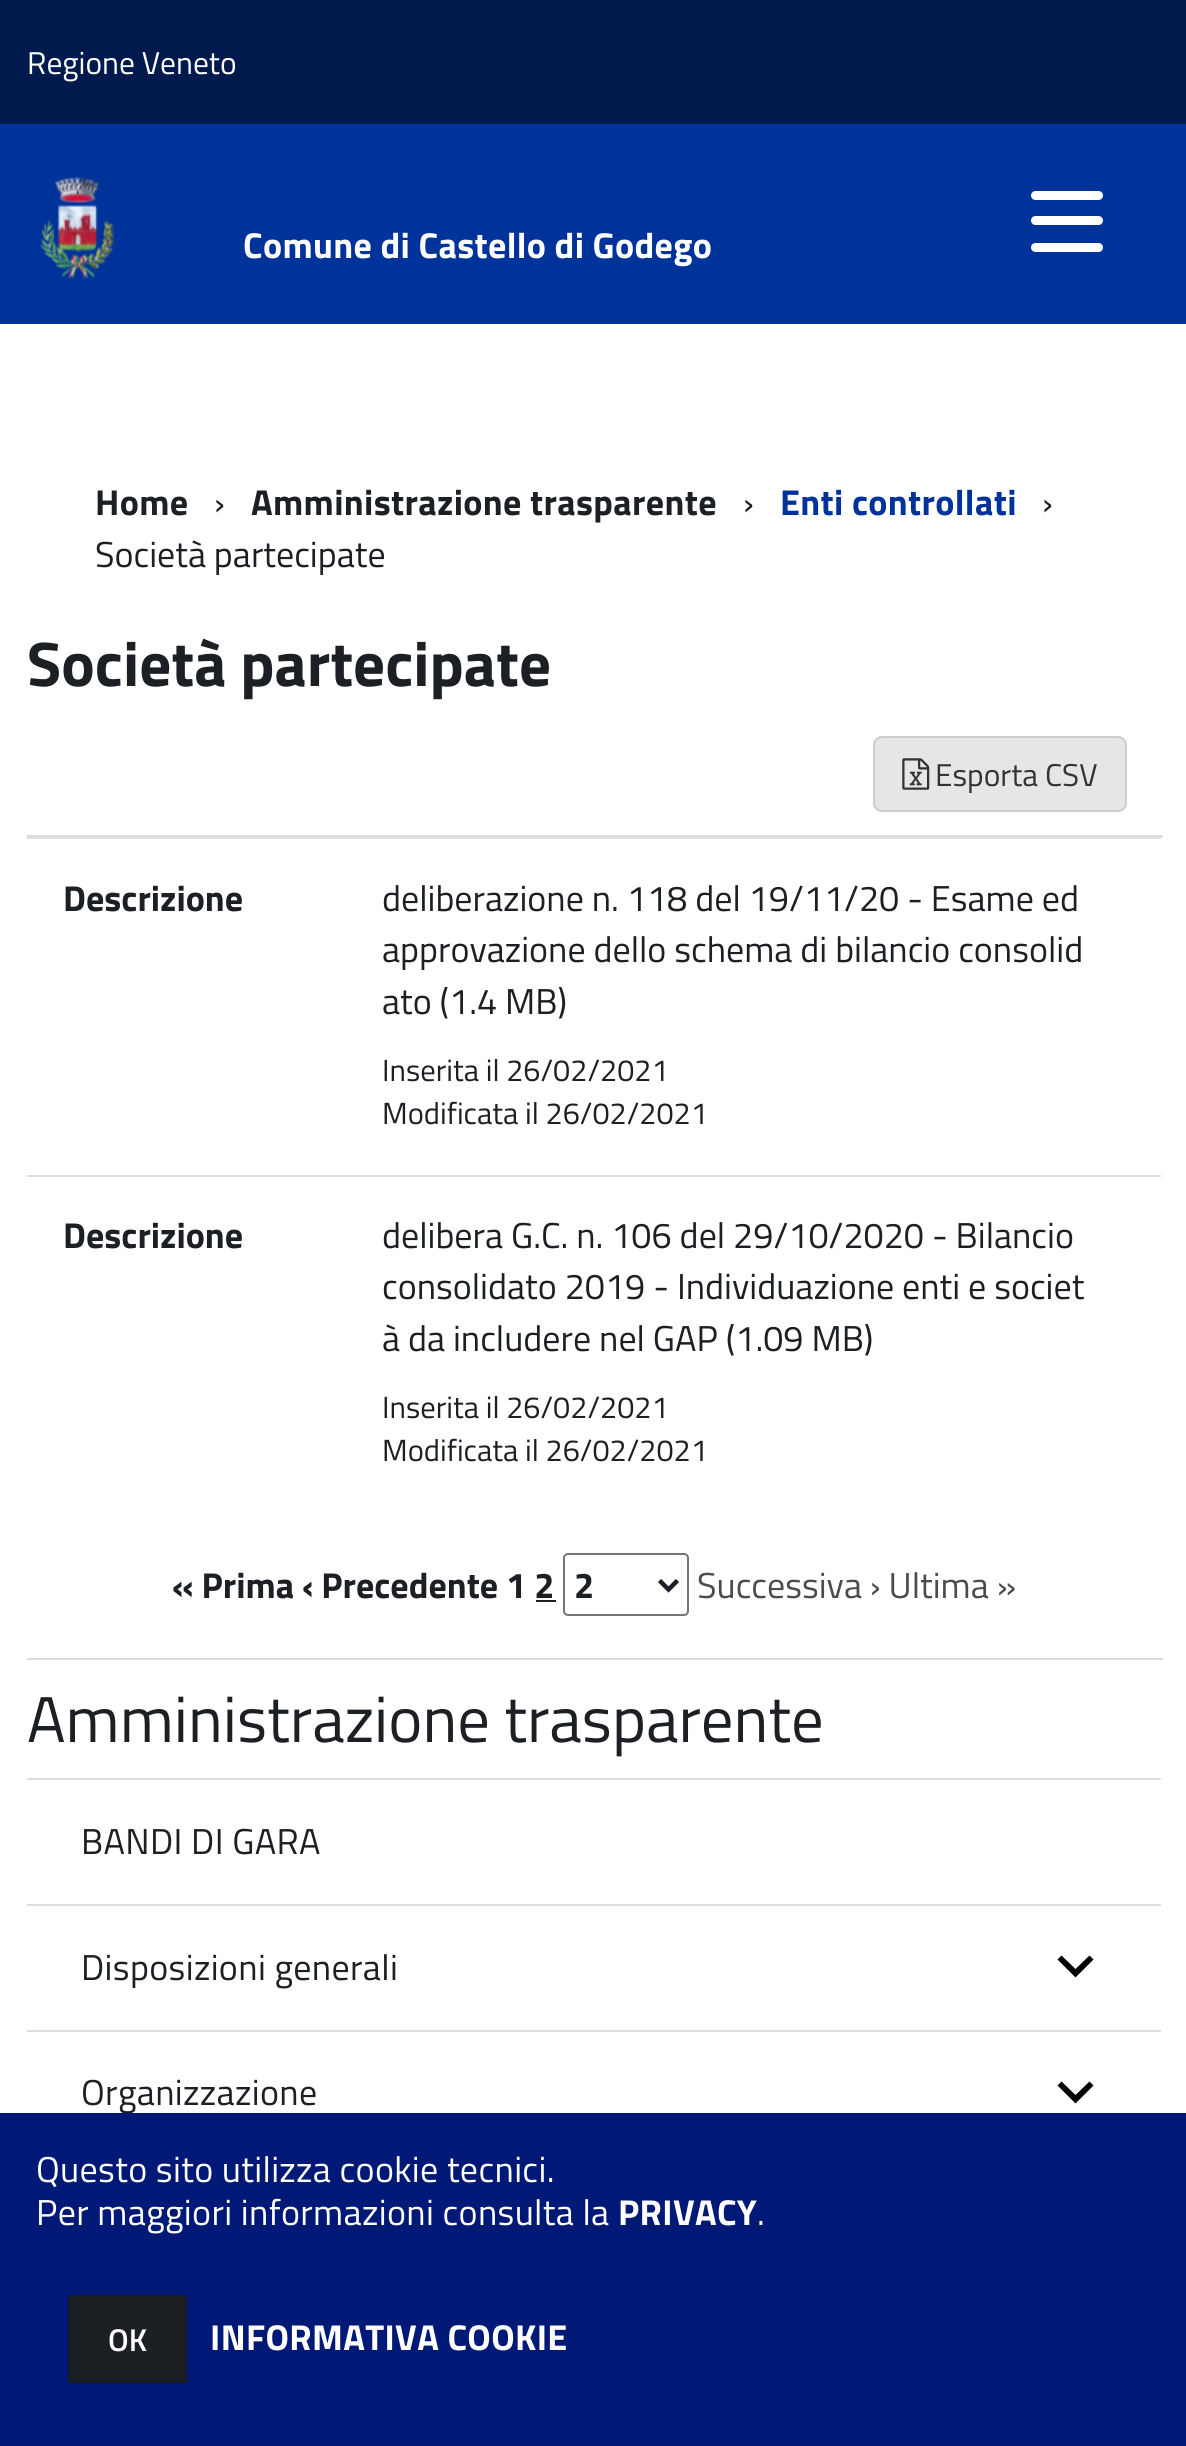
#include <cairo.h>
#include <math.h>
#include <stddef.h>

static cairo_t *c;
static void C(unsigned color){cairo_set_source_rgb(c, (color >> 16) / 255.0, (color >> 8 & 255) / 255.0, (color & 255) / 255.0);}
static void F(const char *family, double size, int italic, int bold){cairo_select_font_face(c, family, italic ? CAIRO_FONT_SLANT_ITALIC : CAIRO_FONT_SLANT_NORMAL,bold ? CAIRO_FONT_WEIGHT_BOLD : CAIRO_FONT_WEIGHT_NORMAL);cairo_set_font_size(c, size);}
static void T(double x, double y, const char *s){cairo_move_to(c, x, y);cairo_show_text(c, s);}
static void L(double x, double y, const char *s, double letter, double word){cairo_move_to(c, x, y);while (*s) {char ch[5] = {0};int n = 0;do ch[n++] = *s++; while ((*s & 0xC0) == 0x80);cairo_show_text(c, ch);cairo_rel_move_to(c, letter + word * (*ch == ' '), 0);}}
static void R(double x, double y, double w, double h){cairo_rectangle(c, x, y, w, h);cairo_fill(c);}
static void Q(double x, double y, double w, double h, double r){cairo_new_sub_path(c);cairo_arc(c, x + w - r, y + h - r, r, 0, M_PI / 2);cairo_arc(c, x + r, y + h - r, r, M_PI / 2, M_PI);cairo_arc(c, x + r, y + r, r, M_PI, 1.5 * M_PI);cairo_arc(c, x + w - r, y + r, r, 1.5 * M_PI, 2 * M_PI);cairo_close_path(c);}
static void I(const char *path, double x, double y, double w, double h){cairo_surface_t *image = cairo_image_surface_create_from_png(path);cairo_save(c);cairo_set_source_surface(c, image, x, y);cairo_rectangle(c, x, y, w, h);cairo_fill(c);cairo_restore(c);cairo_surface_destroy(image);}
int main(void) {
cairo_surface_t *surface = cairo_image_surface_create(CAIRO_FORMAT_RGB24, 1186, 2446);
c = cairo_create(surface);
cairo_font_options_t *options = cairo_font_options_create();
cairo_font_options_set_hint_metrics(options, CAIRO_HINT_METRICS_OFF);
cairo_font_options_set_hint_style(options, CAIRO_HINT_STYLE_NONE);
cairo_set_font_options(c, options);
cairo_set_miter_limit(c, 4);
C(0xffffff);
cairo_paint(c);
C(0x001a4d);
R(0,0,1186,124);
F("Titillium Web",31.5,0,0);
C(0xffffff);
T(27,74,"Regione Veneto");
C(0x003399);
R(0,124,1186,200);
I("1.png",40,176,75,103);
F("Titillium Web",36,0,1);
C(0xffffff);
L(243,258,"Comune di Castello di Godego",.35,0);
Q(1031,216,72,9,4.5);
cairo_fill(c);
Q(1031,191,72,9,4.5);
cairo_fill(c);
Q(1031,243,72,9,4.5);
cairo_fill(c);
C(0x1c2024);
L(95,515,"Home",.35,0);
F("Titillium Web",36,0,0);
T(214,515,"›");
F("Titillium Web",36,0,1);
L(251,515,"Amministrazione trasparente",.35,0);
F("Titillium Web",36,0,0);
T(743,515,"›");
F("Titillium Web",36,0,1);
C(0x003399);
L(780,515,"Enti controllati",.35,0);
F("Titillium Web",36,0,0);
C(0x1c2024);
T(1042,515,"›");
T(95,567,"Società partecipate");
F("Titillium Web",63,0,1);
T(27,686,"Società partecipate");
C(0xe6e6e6);
Q(874,737,252,74,8);
cairo_fill_preserve(c);
C(0xcccccc);
cairo_stroke(c);
I("2.png",902,758,28,32);
F("Titillium Web",31.5,0,0);
C(0x333333);
T(935,786,"Esporta CSV");
C(0xd6dce3);
R(27,835,1136,2);
C(0xdfdfdf);
R(27,837,1134,2);
F("Titillium Web",36,0,1);
C(0x1c2024);
T(63,911,"Descrizione");
F("Titillium Web",36,0,0);
T(382,911,"deliberazione n. 118 del 19/11/20 - Esame ed");
T(382,962,"approvazione dello schema di bilancio consolid");
T(382,1014,"ato (1.4 MB)");
F("Titillium Web",30.6,0,0);
T(382,1081,"Inserita il 26/02/2021");
T(382,1124,"Modificata il 26/02/2021");
C(0xdfdfdf);
R(27,1175,1134,2);
F("Titillium Web",36,0,1);
C(0x1c2024);
T(63,1248,"Descrizione");
F("Titillium Web",36,0,0);
T(382,1248,"delibera G.C. n. 106 del 29/10/2020 - Bilancio");
T(382,1299,"consolidato 2019 - Individuazione enti e societ");
T(382,1351,"à da includere nel GAP (1.09 MB)");
F("Titillium Web",30.6,0,0);
T(382,1418,"Inserita il 26/02/2021");
T(382,1461,"Modificata il 26/02/2021");
C(0xd6dce3);
R(27,1658,1136,2);
F("Titillium Web",36,0,1);
C(0x1c2024);
T(172,1598,"« Prima ‹ Precedente 1 2");
Q(564,1554,124,61,4);
C(0x767676);
cairo_stroke(c);
cairo_new_path(c);
cairo_move_to(c,659.5,1580.5);
cairo_line_to(c,668.5,1589.5);
cairo_line_to(c,677.5,1580.5);
C(0x1c2024);
cairo_set_line_width(c,4.5);
cairo_stroke(c);
T(574,1598,"2");
F("Titillium Web",36,0,0);
C(0x494d50);
T(697,1598,"Successiva › Ultima »");
C(0x1c2024);
R(536,1600,20,2);
F("Titillium Web",64.75,0,0);
T(27,1742,"Amministrazione trasparente");
C(0xdddddd);
R(27,1778,1134,2);
F("Titillium Web",36,0,0);
C(0x1c2024);
L(81,1854,"BANDI DI GARA",.35,0);
C(0xdddddd);
R(27,1904,1134,2);
C(0x1c2024);
L(81,1980,"Disposizioni generali",.35,0);
C(0x000000);
cairo_new_path(c);
cairo_move_to(c,1061.5,1955.5);
cairo_line_to(c,1057.5,1959.5);
cairo_line_to(c,1075.5,1977.5);
cairo_line_to(c,1093.5,1959.5);
cairo_line_to(c,1089.5,1955.5);
cairo_line_to(c,1075.5,1969);
cairo_close_path(c);
cairo_fill(c);
C(0xdddddd);
R(27,2030,1134,2);
C(0x1c2024);
L(81,2105,"Organizzazione",.35,0);
C(0x000000);
cairo_new_path(c);
cairo_move_to(c,1061.5,2081.5);
cairo_line_to(c,1057.5,2085.5);
cairo_line_to(c,1075.5,2103.5);
cairo_line_to(c,1093.5,2085.5);
cairo_line_to(c,1089.5,2081.5);
cairo_line_to(c,1075.5,2095);
cairo_close_path(c);
cairo_fill(c);
C(0x001977);
R(0,2113,1186,333);
C(0xffffff);
L(36,2182,"Questo sito utilizza cookie tecnici.",.35,0);
L(36,2225,"Per maggiori informazioni consulta la",.35,0);
F("Titillium Web",36,0,1);
L(618,2225,"PRIVACY",.35,0);
F("Titillium Web",36,0,0);
L(757,2225,".",.35,0);
C(0x1c2024);
cairo_rectangle(c,69,2296,117,86);
cairo_fill_preserve(c);
C(0x171b1f);
cairo_set_line_width(c,2);
cairo_stroke(c);
F("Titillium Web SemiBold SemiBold",31.5,0,0);
C(0xffffff);
T(108,2351,"OK");
F("Titillium Web",36,0,1);
L(210,2350,"INFORMATIVA COOKIE",.35,0);
cairo_surface_write_to_png(surface, "o.png");
cairo_font_options_destroy(options);
cairo_destroy(c);
cairo_surface_destroy(surface);
return 0;
}
